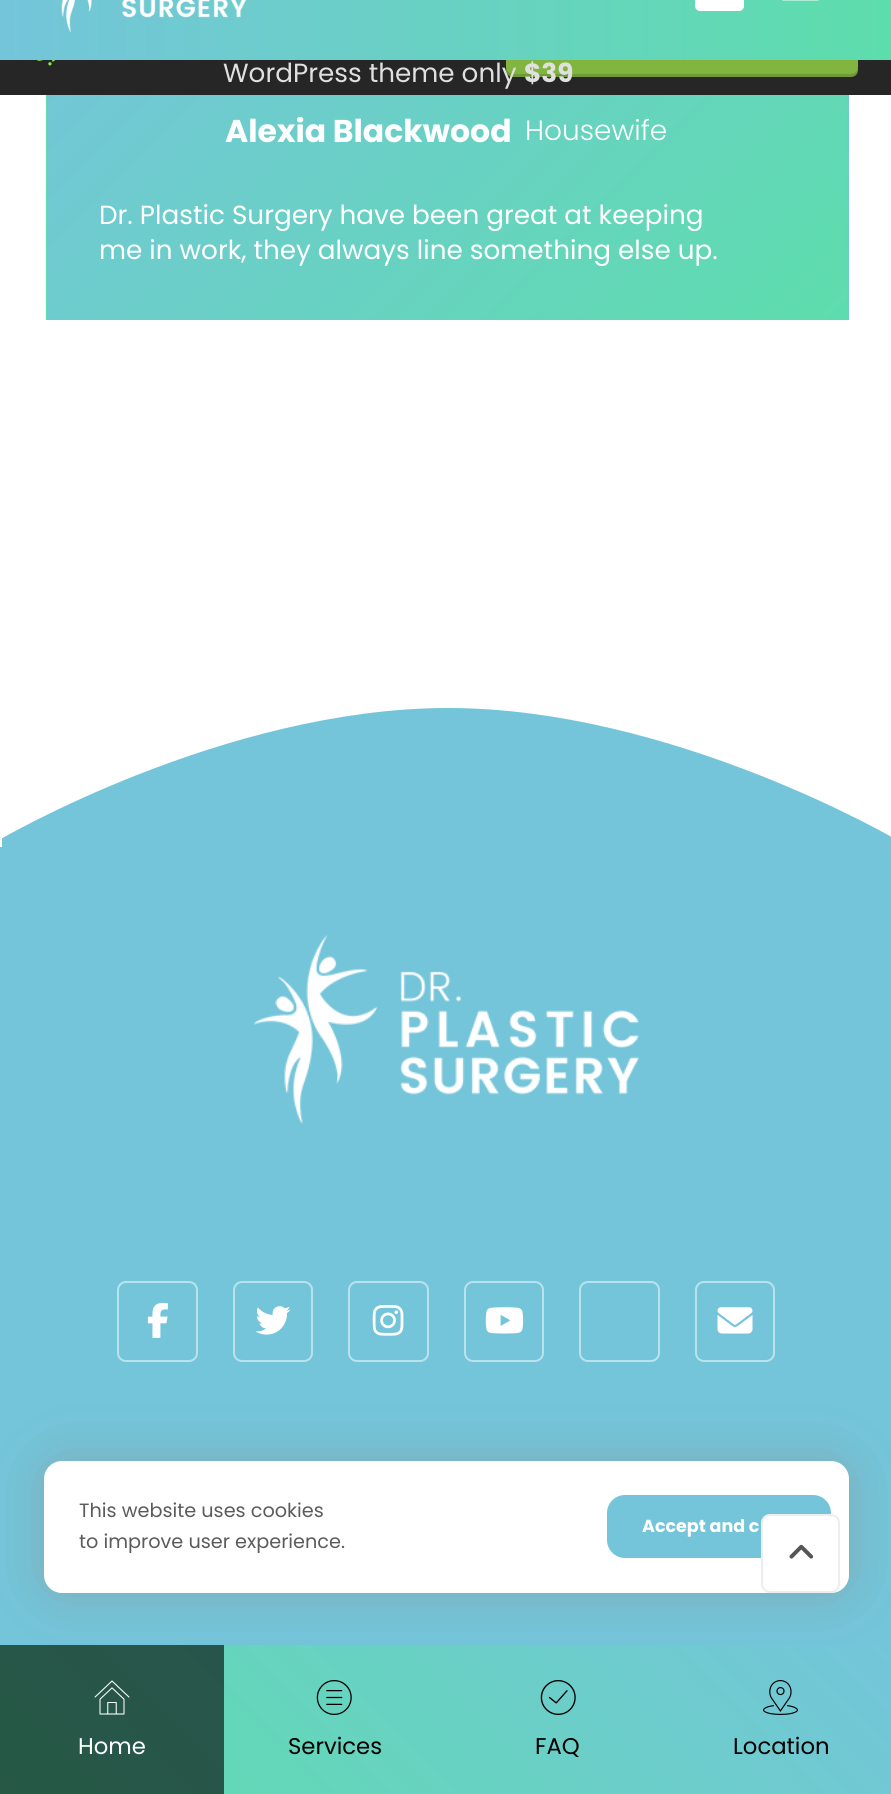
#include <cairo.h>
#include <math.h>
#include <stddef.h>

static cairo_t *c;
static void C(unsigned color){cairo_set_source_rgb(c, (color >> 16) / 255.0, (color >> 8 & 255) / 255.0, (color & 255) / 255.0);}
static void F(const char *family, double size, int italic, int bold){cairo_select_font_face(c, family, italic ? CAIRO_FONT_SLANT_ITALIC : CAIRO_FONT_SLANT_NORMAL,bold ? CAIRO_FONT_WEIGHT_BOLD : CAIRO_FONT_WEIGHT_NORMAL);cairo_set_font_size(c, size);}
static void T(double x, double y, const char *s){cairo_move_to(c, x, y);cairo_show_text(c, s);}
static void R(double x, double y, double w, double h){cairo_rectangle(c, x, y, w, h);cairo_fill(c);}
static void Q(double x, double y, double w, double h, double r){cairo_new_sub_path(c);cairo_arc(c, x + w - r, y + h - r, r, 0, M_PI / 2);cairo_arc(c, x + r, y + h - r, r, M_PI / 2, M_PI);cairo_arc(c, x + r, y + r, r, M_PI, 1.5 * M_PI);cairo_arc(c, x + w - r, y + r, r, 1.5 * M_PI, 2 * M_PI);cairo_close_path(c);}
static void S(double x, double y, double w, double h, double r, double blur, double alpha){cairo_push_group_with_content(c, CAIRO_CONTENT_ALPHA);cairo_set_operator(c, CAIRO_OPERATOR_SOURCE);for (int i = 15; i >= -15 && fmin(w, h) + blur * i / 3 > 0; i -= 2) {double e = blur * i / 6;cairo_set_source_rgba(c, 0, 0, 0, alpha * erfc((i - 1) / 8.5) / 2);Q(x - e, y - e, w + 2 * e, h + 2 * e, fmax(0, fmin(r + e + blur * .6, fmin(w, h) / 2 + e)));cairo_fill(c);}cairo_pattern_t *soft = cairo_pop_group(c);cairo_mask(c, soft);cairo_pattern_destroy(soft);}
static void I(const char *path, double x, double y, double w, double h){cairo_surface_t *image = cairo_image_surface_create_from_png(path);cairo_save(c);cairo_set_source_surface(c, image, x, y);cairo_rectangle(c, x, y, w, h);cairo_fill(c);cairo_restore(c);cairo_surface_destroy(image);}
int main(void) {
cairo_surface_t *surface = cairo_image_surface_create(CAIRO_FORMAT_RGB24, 891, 1794);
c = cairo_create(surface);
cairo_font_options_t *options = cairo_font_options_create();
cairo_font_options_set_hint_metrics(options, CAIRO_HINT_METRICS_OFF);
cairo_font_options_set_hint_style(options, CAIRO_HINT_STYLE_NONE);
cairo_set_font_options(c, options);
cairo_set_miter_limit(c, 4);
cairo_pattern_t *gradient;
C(0xffffff);
cairo_paint(c);
C(0x262626);
R(0,60,891,35);
I("1.png",37,60,19,6);
C(0x6f9a37);
cairo_new_path(c);
cairo_move_to(c,506,68);
cairo_line_to(c,506,70);
cairo_curve_to(c,506,74,509,77,513,77);
cairo_line_to(c,851,77);
cairo_curve_to(c,855,77,858,74,858,70);
cairo_line_to(c,858,30);
cairo_line_to(c,858,27);
cairo_line_to(c,858,66);
cairo_curve_to(c,858,70,854,74,850,74);
cairo_line_to(c,513,74);
cairo_curve_to(c,510,74,507,71,506,68);
cairo_close_path(c);
cairo_fill(c);
C(0x82b440);
Q(506,19,352,55,7);
cairo_fill(c);
F("Poppins",26.25,0,0);
C(0xe0e0e0);
T(223,82,"WordPress theme only");
F("Poppins",26.25,0,1);
T(524,82,"$39");
gradient = cairo_pattern_create_linear(0,-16,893,-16);
cairo_pattern_add_color_stop_rgba(gradient,0,0.455,0.773,0.855,1);
cairo_pattern_add_color_stop_rgba(gradient,1,0.365,0.867,0.675,1);
cairo_set_source(c,gradient);
cairo_pattern_destroy(gradient);
R(0,0,891,60);
I("2.png",61,0,186,33);
C(0xffffff);
Q(695,-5,49,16,5);
cairo_fill(c);
I("3.png",782,0,37,1);
gradient = cairo_pattern_create_linear(-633,-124,-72,437);
cairo_pattern_add_color_stop_rgba(gradient,0,0.455,0.773,0.855,1);
cairo_pattern_add_color_stop_rgba(gradient,1,0.365,0.867,0.675,1);
cairo_set_source(c,gradient);
cairo_pattern_destroy(gradient);
R(46,95,1,224);
gradient = cairo_pattern_create_linear(166,-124,728,437);
cairo_pattern_add_color_stop_rgba(gradient,0,0.455,0.773,0.855,1);
cairo_pattern_add_color_stop_rgba(gradient,1,0.365,0.867,0.675,1);
cairo_set_source(c,gradient);
cairo_pattern_destroy(gradient);
R(47,95,800,224);
gradient = cairo_pattern_create_linear(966,-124,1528,437);
cairo_pattern_add_color_stop_rgba(gradient,0,0.455,0.773,0.855,1);
cairo_pattern_add_color_stop_rgba(gradient,1,0.365,0.867,0.675,1);
cairo_set_source(c,gradient);
cairo_pattern_destroy(gradient);
R(847,95,2,224);
gradient = cairo_pattern_create_linear(-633,200,-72,761);
cairo_pattern_add_color_stop_rgba(gradient,0,0.455,0.773,0.855,1);
cairo_pattern_add_color_stop_rgba(gradient,1,0.365,0.867,0.675,1);
cairo_set_source(c,gradient);
cairo_pattern_destroy(gradient);
R(46,319,1,1);
gradient = cairo_pattern_create_linear(166,200,728,761);
cairo_pattern_add_color_stop_rgba(gradient,0,0.455,0.773,0.855,1);
cairo_pattern_add_color_stop_rgba(gradient,1,0.365,0.867,0.675,1);
cairo_set_source(c,gradient);
cairo_pattern_destroy(gradient);
R(47,319,800,1);
gradient = cairo_pattern_create_linear(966,200,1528,761);
cairo_pattern_add_color_stop_rgba(gradient,0,0.455,0.773,0.855,1);
cairo_pattern_add_color_stop_rgba(gradient,1,0.365,0.867,0.675,1);
cairo_set_source(c,gradient);
cairo_pattern_destroy(gradient);
R(847,319,2,1);
F("Poppins",31.5,0,1);
C(0xffffff);
T(225,142,"Alexia Blackwood");
F("Poppins Light",28,0,0);
T(525,140,"Housewife");
F("Poppins",26.25,0,0);
T(99,224,"Dr. Plastic Surgery have been great at keeping");
T(99,259,"me in work, they always line something else up.");
C(0x74c5da);
R(0,847,891,798);
cairo_save(c);
cairo_rectangle(c,2,639,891,210);
cairo_clip(c);
cairo_new_path(c);
cairo_move_to(c,-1,840);
cairo_curve_to(c,-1,840,224,708,448,708);
cairo_curve_to(c,672,708,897,840,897,840);
cairo_line_to(c,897,1087);
cairo_line_to(c,-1,1087);
cairo_close_path(c);
cairo_fill(c);
cairo_restore(c);
I("4.png",253,935,386,189);
Q(118,1282,79,79,8);
C(0xbae2ed);
cairo_stroke(c);
I("5.png",147,1302,21,36);
Q(234,1282,78,79,8);
cairo_stroke(c);
I("6.png",255,1306,36,29);
Q(349,1282,79,79,8);
cairo_stroke(c);
I("7.png",372,1305,32,31);
Q(465,1282,78,79,8);
cairo_stroke(c);
I("8.png",485,1307,39,27);
Q(580,1282,79,79,8);
cairo_stroke(c);
Q(696,1282,78,79,8);
cairo_stroke(c);
I("9.png",717,1307,36,27);
C(0x8a8a8a);
S(44,1461,805,132,18,26,.44);
C(0xffffff);
Q(44,1461,805,132,18);
cairo_fill(c);
F("Poppins",19.25,0,0);
C(0x5b5b5b);
T(79,1517,"This website uses cookies");
T(79,1548,"to improve user experience.");
C(0x74c5da);
Q(607,1495,224,63,18);
cairo_fill(c);
F("Poppins",17.5,0,1);
C(0xffffff);
T(642,1532,"Accept and c");
Q(761,1514,79,79,9);
cairo_fill(c);
Q(762,1515,77,77,8);
cairo_set_source_rgba(c,0.655,0.655,0.655,0.2);
cairo_stroke(c);
I("10.png",789,1544,25,15);
gradient = cairo_pattern_create_linear(186,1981,707,1460);
cairo_pattern_add_color_stop_rgba(gradient,0,0.365,0.867,0.675,1);
cairo_pattern_add_color_stop_rgba(gradient,1,0.455,0.773,0.855,1);
cairo_set_source(c,gradient);
cairo_pattern_destroy(gradient);
R(0,1645,891,149);
cairo_set_source_rgba(c,0,0,0,0.6);
R(0,1645,224,149);
I("11.png",94,1680,36,35);
F("Poppins",22.75,0,0);
C(0xffffff);
T(78,1754,"Home");
I("12.png",316,1680,36,35);
C(0x000000);
T(288,1754,"Services");
I("13.png",540,1680,36,35);
T(535,1754,"FAQ");
I("14.png",763,1680,35,35);
T(733,1754,"Location");
cairo_surface_write_to_png(surface, "o.png");
cairo_font_options_destroy(options);
cairo_destroy(c);
cairo_surface_destroy(surface);
return 0;
}
